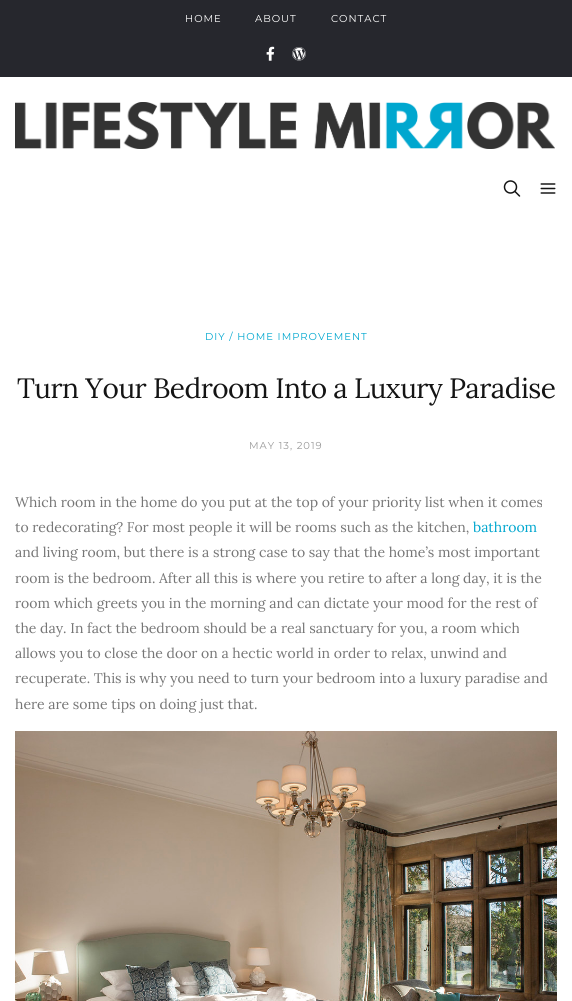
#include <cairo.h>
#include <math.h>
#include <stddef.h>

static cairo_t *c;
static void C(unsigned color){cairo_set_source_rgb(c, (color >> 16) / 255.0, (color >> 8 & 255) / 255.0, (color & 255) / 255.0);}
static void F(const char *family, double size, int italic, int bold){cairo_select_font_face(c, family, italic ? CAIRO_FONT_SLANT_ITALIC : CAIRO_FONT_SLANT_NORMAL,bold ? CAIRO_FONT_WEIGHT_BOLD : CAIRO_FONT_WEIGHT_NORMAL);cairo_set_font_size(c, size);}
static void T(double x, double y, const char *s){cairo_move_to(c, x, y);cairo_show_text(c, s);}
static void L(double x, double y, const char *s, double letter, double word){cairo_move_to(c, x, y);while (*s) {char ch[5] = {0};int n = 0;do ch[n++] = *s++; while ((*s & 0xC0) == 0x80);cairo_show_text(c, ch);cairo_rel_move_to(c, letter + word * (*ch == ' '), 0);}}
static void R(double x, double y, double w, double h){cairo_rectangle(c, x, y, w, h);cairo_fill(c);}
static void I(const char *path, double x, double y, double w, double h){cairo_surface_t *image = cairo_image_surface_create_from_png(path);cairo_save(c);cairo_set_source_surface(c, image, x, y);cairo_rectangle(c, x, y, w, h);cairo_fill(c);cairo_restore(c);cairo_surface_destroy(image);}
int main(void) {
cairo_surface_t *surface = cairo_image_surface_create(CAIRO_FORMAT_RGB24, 572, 1001);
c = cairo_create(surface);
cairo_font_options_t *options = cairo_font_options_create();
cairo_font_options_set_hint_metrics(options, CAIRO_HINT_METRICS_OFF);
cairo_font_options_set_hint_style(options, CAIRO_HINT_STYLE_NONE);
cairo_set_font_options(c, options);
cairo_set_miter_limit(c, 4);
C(0xffffff);
cairo_paint(c);
C(0x26272d);
R(0,0,572,77);
F("Montserrat",10,0,0);
C(0xffffff);
L(185,22,"HOME",1,0);
L(255,22,"ABOUT",1,0);
L(331,22,"CONTACT",1,0);
I("1.png",266,46,9,15);
I("2.png",292,47,14,14);
I("3.png",15,102,540,47);
I("4.png",503,180,18,17);
I("5.png",540,183,16,11);
C(0x00a7cf);
L(205,340,"DIY / HOME IMPROVEMENT",1,0);
F("Lora",28,0,0);
C(0x141414);
L(17,398,"Turn Your Bedroom Into a Luxury Paradise",-.55,0);
F("Montserrat",10,0,0);
C(0x999999);
L(249,449,"MAY 13, 2019",1,0);
F("Lora",14,0,0);
C(0x767676);
T(15,507,"Which room in the home do you put at the top of your priority list when it comes");
T(15,532,"to redecorating? For most people it will be rooms such as the kitchen,");
C(0x00a7cf);
T(473,532,"bathroom");
C(0x767676);
T(15,557,"and living room, but there is a strong case to say that the home’s most important");
T(15,583,"room is the bedroom. After all this is where you retire to after a long day, it is the");
T(15,608,"room which greets you in the morning and can dictate your mood for the rest of");
T(15,633,"the day. In fact the bedroom should be a real sanctuary for you, a room which");
T(15,658,"allows you to close the door on a hectic world in order to relax, unwind and");
T(15,683,"recuperate. This is why you need to turn your bedroom into a luxury paradise and");
T(15,709,"here are some tips on doing just that.");
I("6.png",15,731,542,270);
cairo_surface_write_to_png(surface, "o.png");
cairo_font_options_destroy(options);
cairo_destroy(c);
cairo_surface_destroy(surface);
return 0;
}
